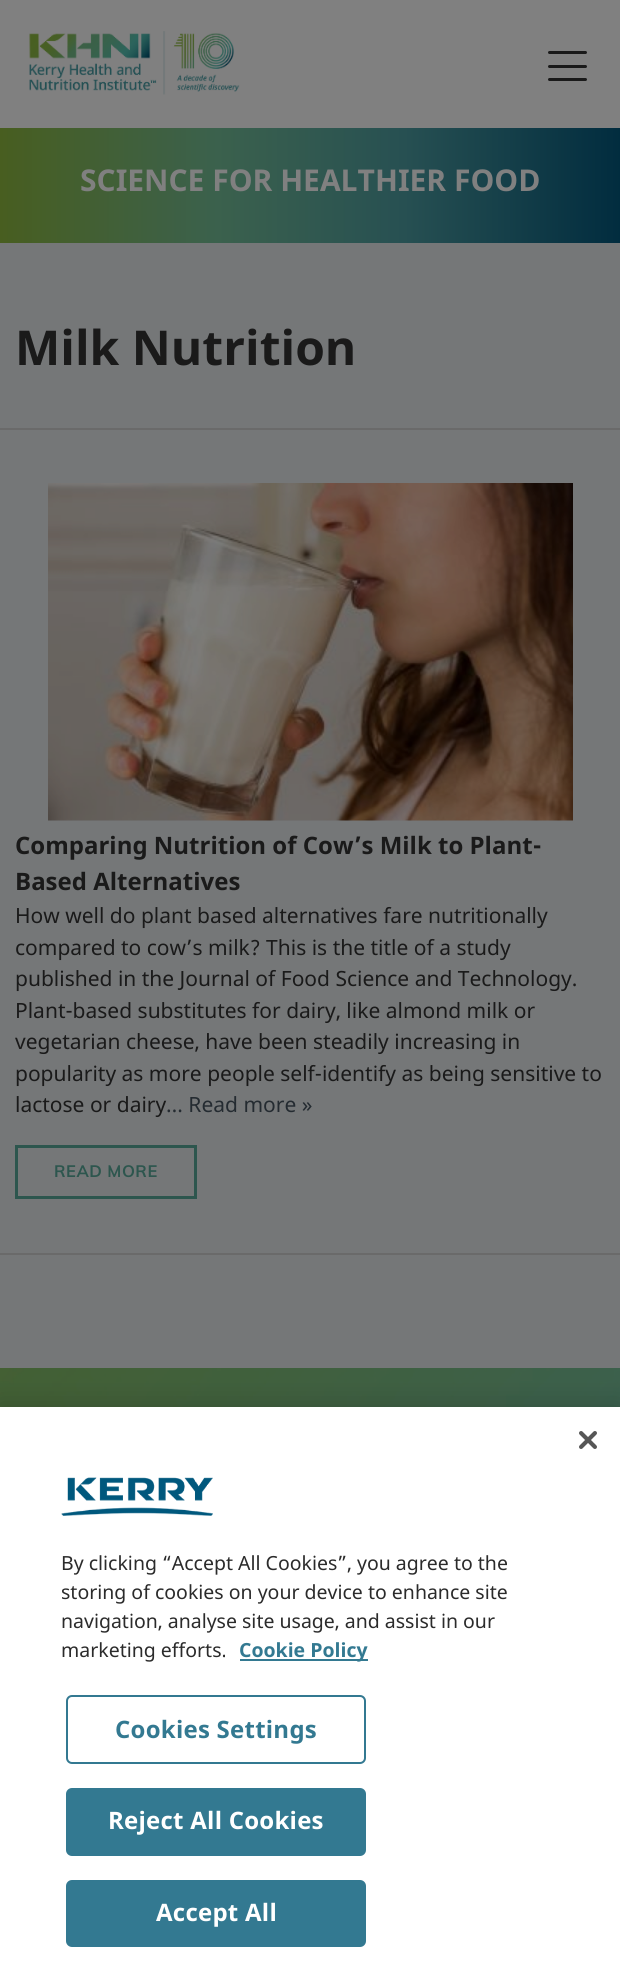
#include <cairo.h>
#include <math.h>
#include <stddef.h>

static cairo_t *c;
static void C(unsigned color){cairo_set_source_rgb(c, (color >> 16) / 255.0, (color >> 8 & 255) / 255.0, (color & 255) / 255.0);}
static void F(const char *family, double size, int italic, int bold){cairo_select_font_face(c, family, italic ? CAIRO_FONT_SLANT_ITALIC : CAIRO_FONT_SLANT_NORMAL,bold ? CAIRO_FONT_WEIGHT_BOLD : CAIRO_FONT_WEIGHT_NORMAL);cairo_set_font_size(c, size);}
static void T(double x, double y, const char *s){cairo_move_to(c, x, y);cairo_show_text(c, s);}
static void L(double x, double y, const char *s, double letter, double word){cairo_move_to(c, x, y);while (*s) {char ch[5] = {0};int n = 0;do ch[n++] = *s++; while ((*s & 0xC0) == 0x80);cairo_show_text(c, ch);cairo_rel_move_to(c, letter + word * (*ch == ' '), 0);}}
static void R(double x, double y, double w, double h){cairo_rectangle(c, x, y, w, h);cairo_fill(c);}
static void Q(double x, double y, double w, double h, double r){cairo_new_sub_path(c);cairo_arc(c, x + w - r, y + h - r, r, 0, M_PI / 2);cairo_arc(c, x + r, y + h - r, r, M_PI / 2, M_PI);cairo_arc(c, x + r, y + r, r, M_PI, 1.5 * M_PI);cairo_arc(c, x + w - r, y + r, r, 1.5 * M_PI, 2 * M_PI);cairo_close_path(c);}
static void S(double x, double y, double w, double h, double r, double blur, double alpha){cairo_push_group_with_content(c, CAIRO_CONTENT_ALPHA);cairo_set_operator(c, CAIRO_OPERATOR_SOURCE);for (int i = 15; i >= -15 && fmin(w, h) + blur * i / 3 > 0; i -= 2) {double e = blur * i / 6;cairo_set_source_rgba(c, 0, 0, 0, alpha * erfc((i - 1) / 8.5) / 2);Q(x - e, y - e, w + 2 * e, h + 2 * e, fmax(0, fmin(r + e + blur * .6, fmin(w, h) / 2 + e)));cairo_fill(c);}cairo_pattern_t *soft = cairo_pop_group(c);cairo_mask(c, soft);cairo_pattern_destroy(soft);}
static void I(const char *path, double x, double y, double w, double h){cairo_surface_t *image = cairo_image_surface_create_from_png(path);cairo_save(c);cairo_set_source_surface(c, image, x, y);cairo_rectangle(c, x, y, w, h);cairo_fill(c);cairo_restore(c);cairo_surface_destroy(image);}
int main(void) {
cairo_surface_t *surface = cairo_image_surface_create(CAIRO_FORMAT_RGB24, 620, 1971);
c = cairo_create(surface);
cairo_font_options_t *options = cairo_font_options_create();
cairo_font_options_set_hint_metrics(options, CAIRO_HINT_METRICS_OFF);
cairo_font_options_set_hint_style(options, CAIRO_HINT_STYLE_NONE);
cairo_set_font_options(c, options);
cairo_set_miter_limit(c, 4);
cairo_pattern_t *gradient;
C(0x757778);
cairo_paint(c);
C(0x808080);
R(0,0,620,128);
I("1.png",29,31,211,64);
C(0x1a1a1a);
Q(548,51,39,3,1.5);
cairo_fill(c);
Q(548,65,39,3,1.5);
cairo_fill(c);
Q(548,78,39,3,1.5);
cairo_fill(c);
gradient = cairo_pattern_create_linear(0,185,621,185);
cairo_pattern_add_color_stop_rgba(gradient,0,0.282,0.369,0.125,1);
cairo_pattern_add_color_stop_rgba(gradient,.35,0.231,0.38,0.302,1);
cairo_pattern_add_color_stop_rgba(gradient,.65,0.153,0.314,0.322,1);
cairo_pattern_add_color_stop_rgba(gradient,1,0.004,0.173,0.247,1);
cairo_set_source(c,gradient);
cairo_pattern_destroy(gradient);
R(0,128,620,115);
F("Noto Sans",30,0,1);
C(0x808080);
T(80,191,"SCIENCE FOR HEALTHIER FOOD");
F("Noto Sans",48,0,1);
C(0x1a1a1a);
T(15,365,"Milk Nutrition");
C(0x6a6a6a);
R(0,428,620,2);
R(0,1253,620,2);
I("2.png",48,483,525,338);
F("Noto Sans",24,0,1);
C(0x1a1a1a);
T(15,854,"Comparing Nutrition of Cow’s Milk to Plant-");
T(15,890,"Based Alternatives");
F("Noto Sans",21,0,0);
T(15,923,"How well do plant based alternatives fare nutritionally");
T(15,955,"compared to cow’s milk? This is the title of a study");
T(15,986,"published in the Journal of Food Science and Technology.");
T(15,1018,"Plant-based substitutes for dairy, like almond milk or");
T(15,1049,"vegetarian cheese, have been steadily increasing in");
T(15,1081,"popularity as more people self-identify as being sensitive to");
T(15,1112,"lactose or dairy");
C(0x242b31);
T(166,1112,"… Read more »");
cairo_rectangle(c,16.5,1146.5,179,51);
C(0x2d564e);
cairo_set_line_width(c,3);
cairo_stroke(c);
F("Muli",16.5,0,1);
L(54,1177,"READ MORE",.5,0);
I("3.png",0,1368,620,39);
C(0x000000);
S(0,1407,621,564,0,13.5,.2);
C(0xffffff);
R(0,1407,620,564);
I("4.png",579,1431,18,18);
I("5.png",61,1477,152,39);
F("Noto Sans",19.5,0,0);
C(0x2b2b2b);
T(61,1570,"By clicking “Accept All Cookies”, you agree to the");
T(61,1599,"storing of cookies on your device to enhance site");
T(61,1628,"navigation, analyse site usage, and assist in our");
T(61,1657,"marketing efforts.");
C(0x337991);
R(240,1659,128,2);
F("Noto Sans",19.5,0,1);
T(239,1657,"Cookie Policy");
Q(67,1696,298,67,5);
cairo_set_line_width(c,2);
cairo_stroke(c);
F("Noto Sans",24,0,1);
L(115,1738,"Cookies Settings",.25,0);
Q(67,1789,298,66,5);
cairo_fill_preserve(c);
cairo_stroke(c);
C(0xffffff);
L(108,1829,"Reject All Cookies",.25,0);
C(0x337991);
Q(67,1881,298,65,5);
cairo_fill_preserve(c);
cairo_stroke(c);
C(0xffffff);
L(156,1921,"Accept All",.25,0);
cairo_surface_write_to_png(surface, "o.png");
cairo_font_options_destroy(options);
cairo_destroy(c);
cairo_surface_destroy(surface);
return 0;
}
